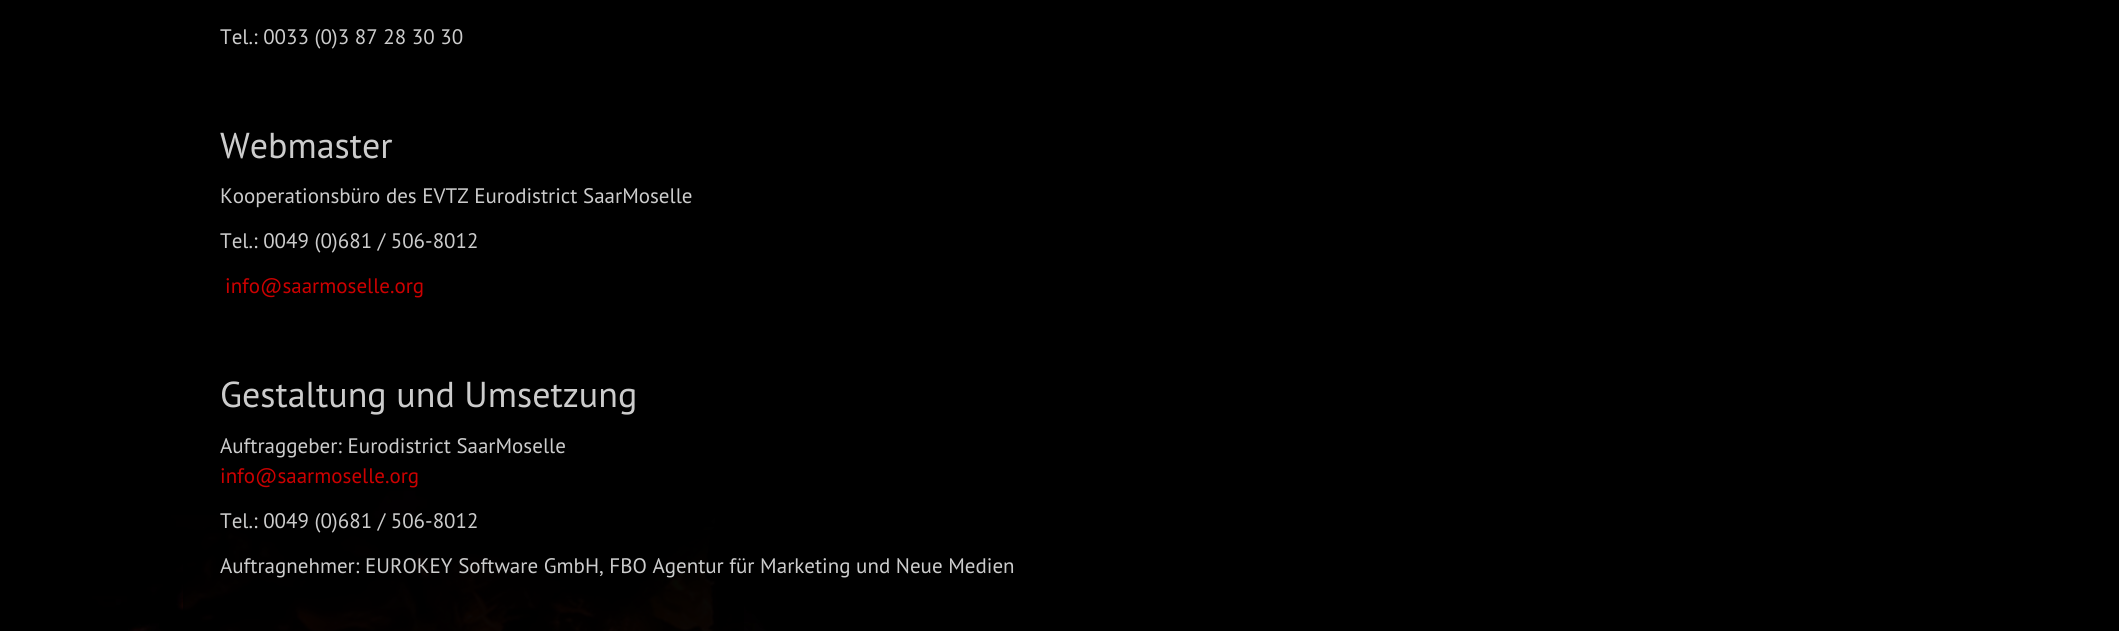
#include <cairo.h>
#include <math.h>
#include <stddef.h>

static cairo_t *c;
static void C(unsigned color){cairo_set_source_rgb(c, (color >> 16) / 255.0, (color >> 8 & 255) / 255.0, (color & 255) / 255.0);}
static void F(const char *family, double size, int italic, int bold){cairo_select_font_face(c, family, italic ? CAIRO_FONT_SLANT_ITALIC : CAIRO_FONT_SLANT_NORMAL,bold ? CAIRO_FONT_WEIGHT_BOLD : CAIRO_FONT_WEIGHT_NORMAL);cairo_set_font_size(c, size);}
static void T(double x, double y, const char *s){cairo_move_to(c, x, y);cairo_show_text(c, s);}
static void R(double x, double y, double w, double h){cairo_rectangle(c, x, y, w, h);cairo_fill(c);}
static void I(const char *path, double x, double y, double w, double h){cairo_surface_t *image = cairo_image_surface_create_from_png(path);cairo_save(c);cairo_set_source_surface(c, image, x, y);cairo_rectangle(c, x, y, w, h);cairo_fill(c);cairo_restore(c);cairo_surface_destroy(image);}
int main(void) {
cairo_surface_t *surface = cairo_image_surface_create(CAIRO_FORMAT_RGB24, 2119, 631);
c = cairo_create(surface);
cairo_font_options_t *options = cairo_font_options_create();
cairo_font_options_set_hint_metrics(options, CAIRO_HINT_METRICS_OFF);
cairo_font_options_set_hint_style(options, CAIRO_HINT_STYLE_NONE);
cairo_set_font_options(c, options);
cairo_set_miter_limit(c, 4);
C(0xffffff);
cairo_paint(c);
I("1.png",0,0,2119,631);
cairo_set_source_rgba(c,0,0,0,0.8);
R(183,530,561,101);
F("PT Sans",21,0,0);
C(0xcccccc);
T(220,44,"Tel.: 0033 (0)3 87 28 30 30");
F("PT Sans",36,0,0);
T(220,158,"Webmaster");
F("PT Sans",21,0,0);
T(220,203,"Kooperationsbüro des EVTZ Eurodistrict SaarMoselle");
T(220,248,"Tel.: 0049 (0)681 / 506-8012");
C(0xcc0000);
T(225,293,"info@saarmoselle.org");
F("PT Sans",36,0,0);
C(0xcccccc);
T(220,407,"Gestaltung und Umsetzung");
F("PT Sans",21,0,0);
T(220,453,"Auftraggeber: Eurodistrict SaarMoselle");
C(0xcc0000);
T(220,483,"info@saarmoselle.org");
C(0xcccccc);
T(220,528,"Tel.: 0049 (0)681 / 506-8012");
T(220,573,"Auftragnehmer: EUROKEY Software GmbH, FBO Agentur für Marketing und Neue Medien");
cairo_surface_write_to_png(surface, "o.png");
cairo_font_options_destroy(options);
cairo_destroy(c);
cairo_surface_destroy(surface);
return 0;
}
